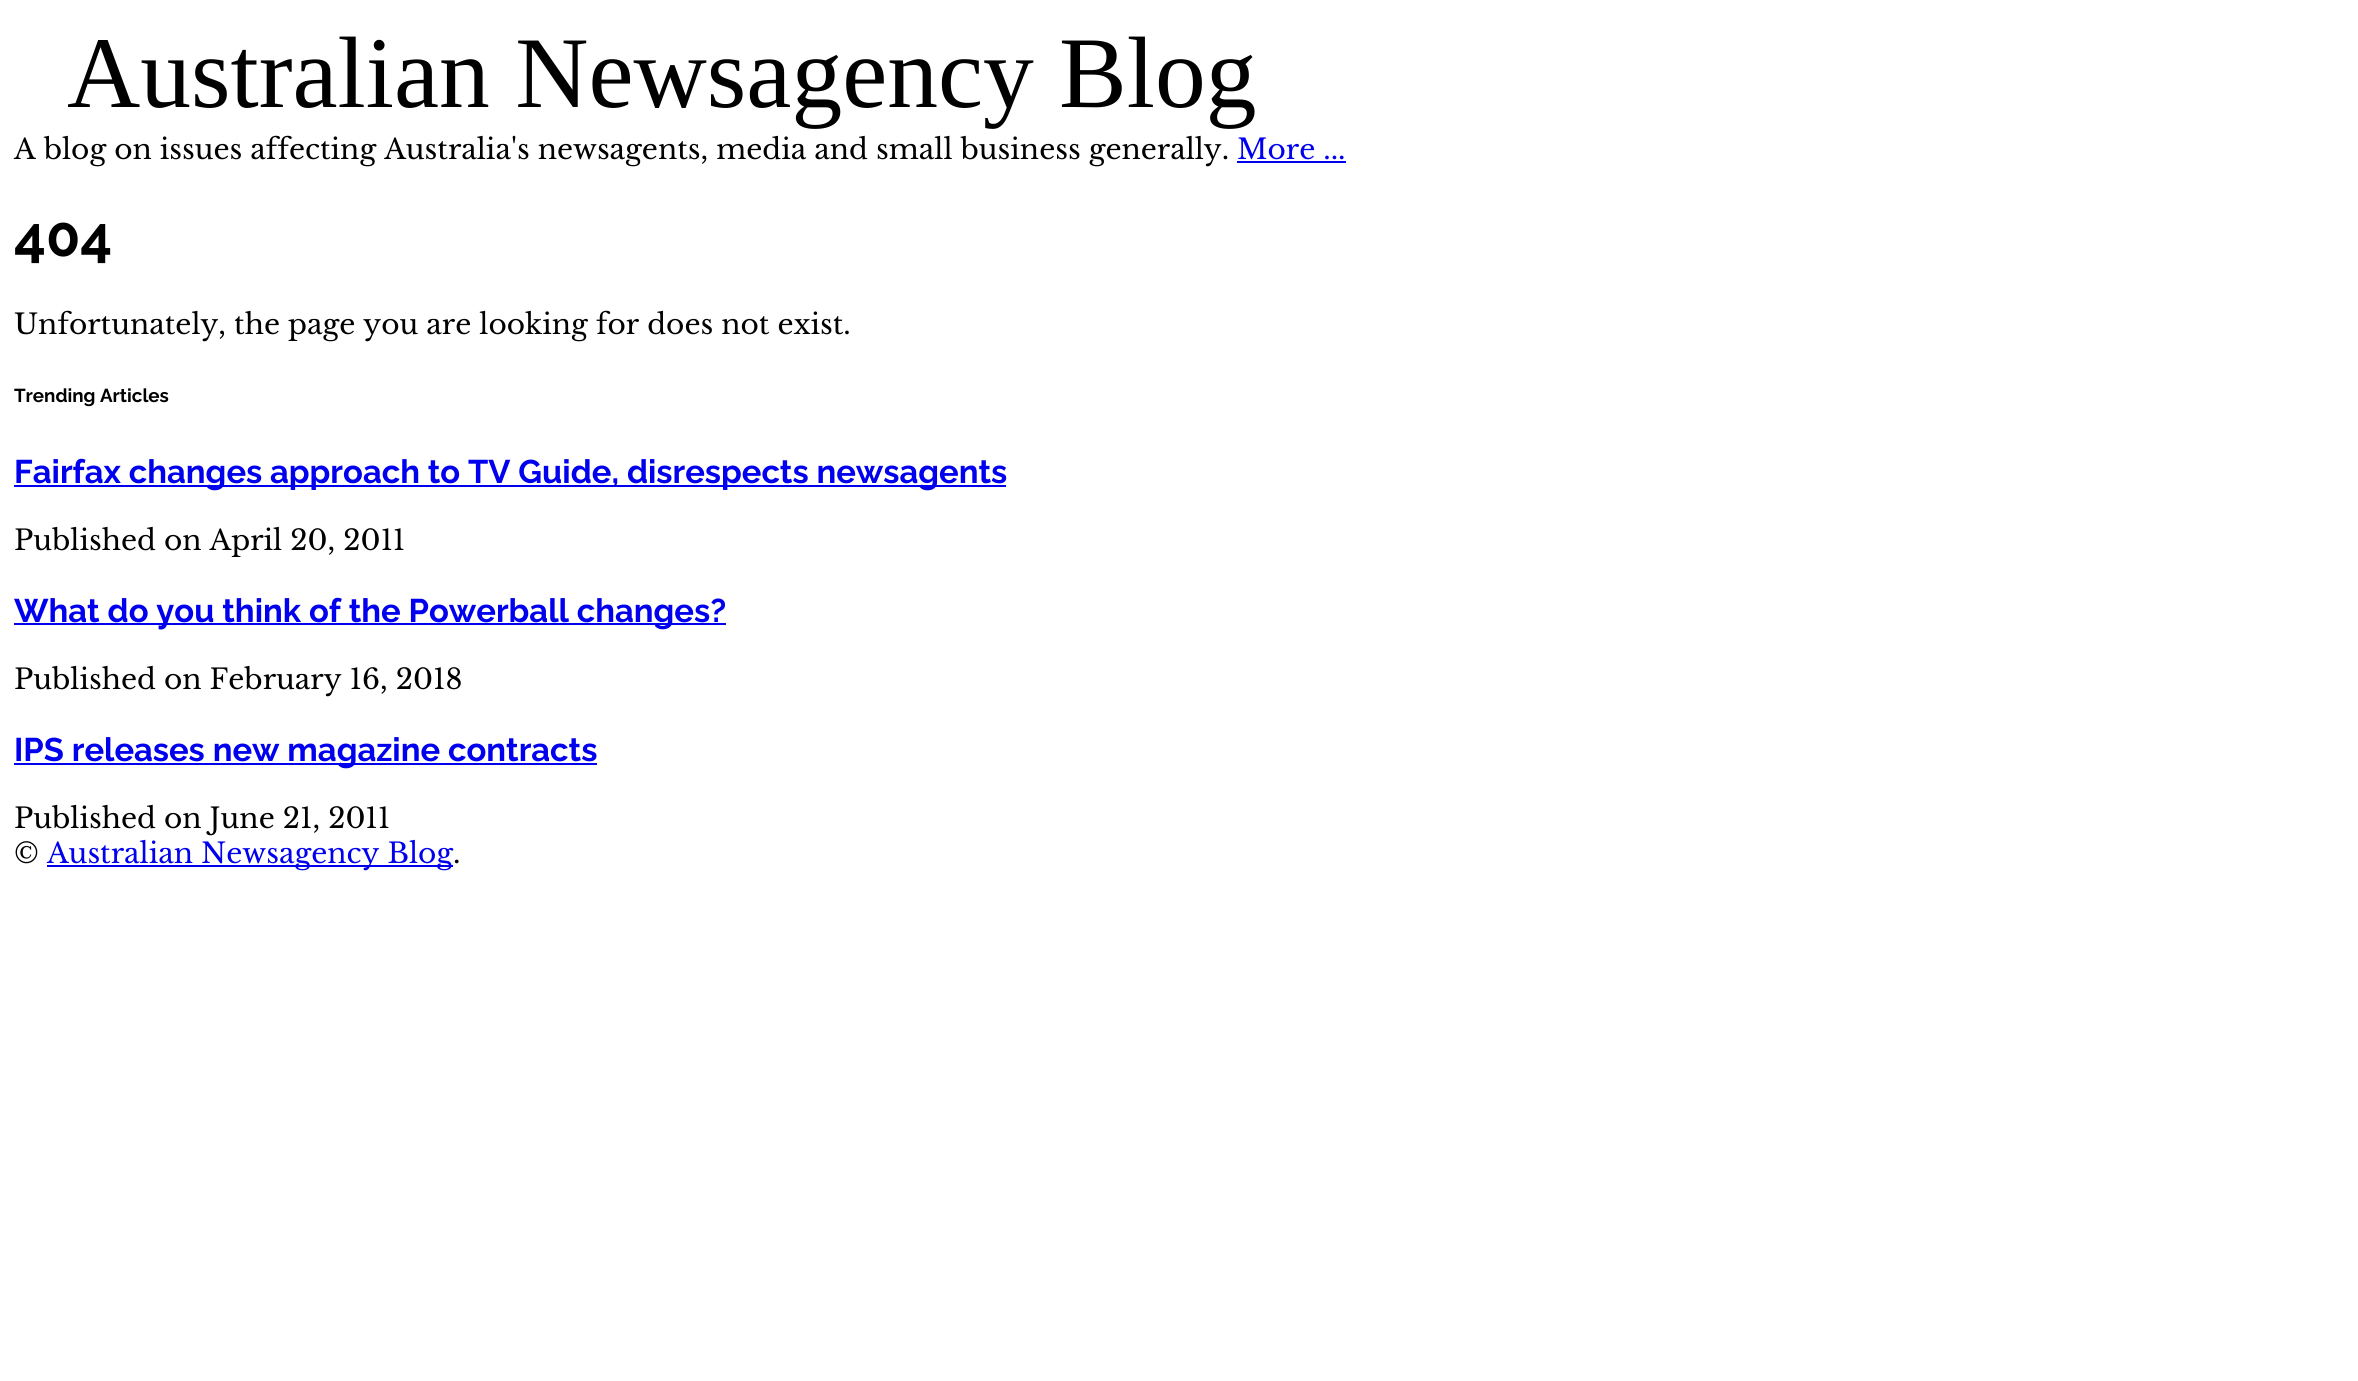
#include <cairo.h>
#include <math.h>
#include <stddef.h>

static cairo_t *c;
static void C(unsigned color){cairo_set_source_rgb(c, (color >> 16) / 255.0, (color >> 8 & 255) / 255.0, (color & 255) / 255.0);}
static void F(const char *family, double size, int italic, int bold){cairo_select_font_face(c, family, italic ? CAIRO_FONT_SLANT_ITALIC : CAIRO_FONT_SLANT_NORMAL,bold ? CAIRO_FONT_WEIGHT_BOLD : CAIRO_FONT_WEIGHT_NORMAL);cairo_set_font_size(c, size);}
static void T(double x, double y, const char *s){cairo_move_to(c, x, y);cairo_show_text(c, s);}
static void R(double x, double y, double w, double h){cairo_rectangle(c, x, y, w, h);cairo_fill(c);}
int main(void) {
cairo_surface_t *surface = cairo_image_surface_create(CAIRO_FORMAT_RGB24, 2358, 1381);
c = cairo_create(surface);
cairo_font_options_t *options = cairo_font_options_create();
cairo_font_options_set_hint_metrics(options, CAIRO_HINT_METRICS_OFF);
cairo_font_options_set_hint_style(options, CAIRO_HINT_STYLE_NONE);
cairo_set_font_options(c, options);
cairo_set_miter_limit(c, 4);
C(0xffffff);
cairo_paint(c);
F("Liberation Serif",101.5,0,0);
C(0x000000);
T(67,107,"Australian Newsagency Blog");
F("Libre Baskerville",28,0,0);
T(14,159,"A blog on issues affecting Australia's newsagents, media and small business generally.");
C(0x0000ee);
T(1237,159,"More ...");
R(1237,161,109,2);
F("Raleway",56,0,1);
C(0x000000);
T(14,256,"404");
F("Libre Baskerville",28,0,0);
T(14,334,"Unfortunately, the page you are looking for does not exist.");
F("Raleway",18.75,0,1);
T(14,402,"Trending Articles");
C(0x0000ee);
R(14,485,992,2);
F("Raleway",32.75,0,1);
T(14,483,"Fairfax changes approach to TV Guide, disrespects newsagents");
F("Libre Baskerville",28,0,0);
C(0x000000);
T(14,550,"Published on April 20, 2011");
C(0x0000ee);
R(14,623,712,2);
F("Raleway",32.75,0,1);
T(14,622,"What do you think of the Powerball changes?");
F("Libre Baskerville",28,0,0);
C(0x000000);
T(14,689,"Published on February 16, 2018");
C(0x0000ee);
R(14,763,583,2);
F("Raleway",32.75,0,1);
T(14,761,"IPS releases new magazine contracts");
F("Libre Baskerville",28,0,0);
C(0x000000);
T(14,828,"Published on June 21, 2011");
T(14,863,"©");
C(0x0000ee);
R(47,865,406,2);
T(47,863,"Australian Newsagency Blog");
C(0x000000);
T(453,863,".");
cairo_surface_write_to_png(surface, "o.png");
cairo_font_options_destroy(options);
cairo_destroy(c);
cairo_surface_destroy(surface);
return 0;
}
